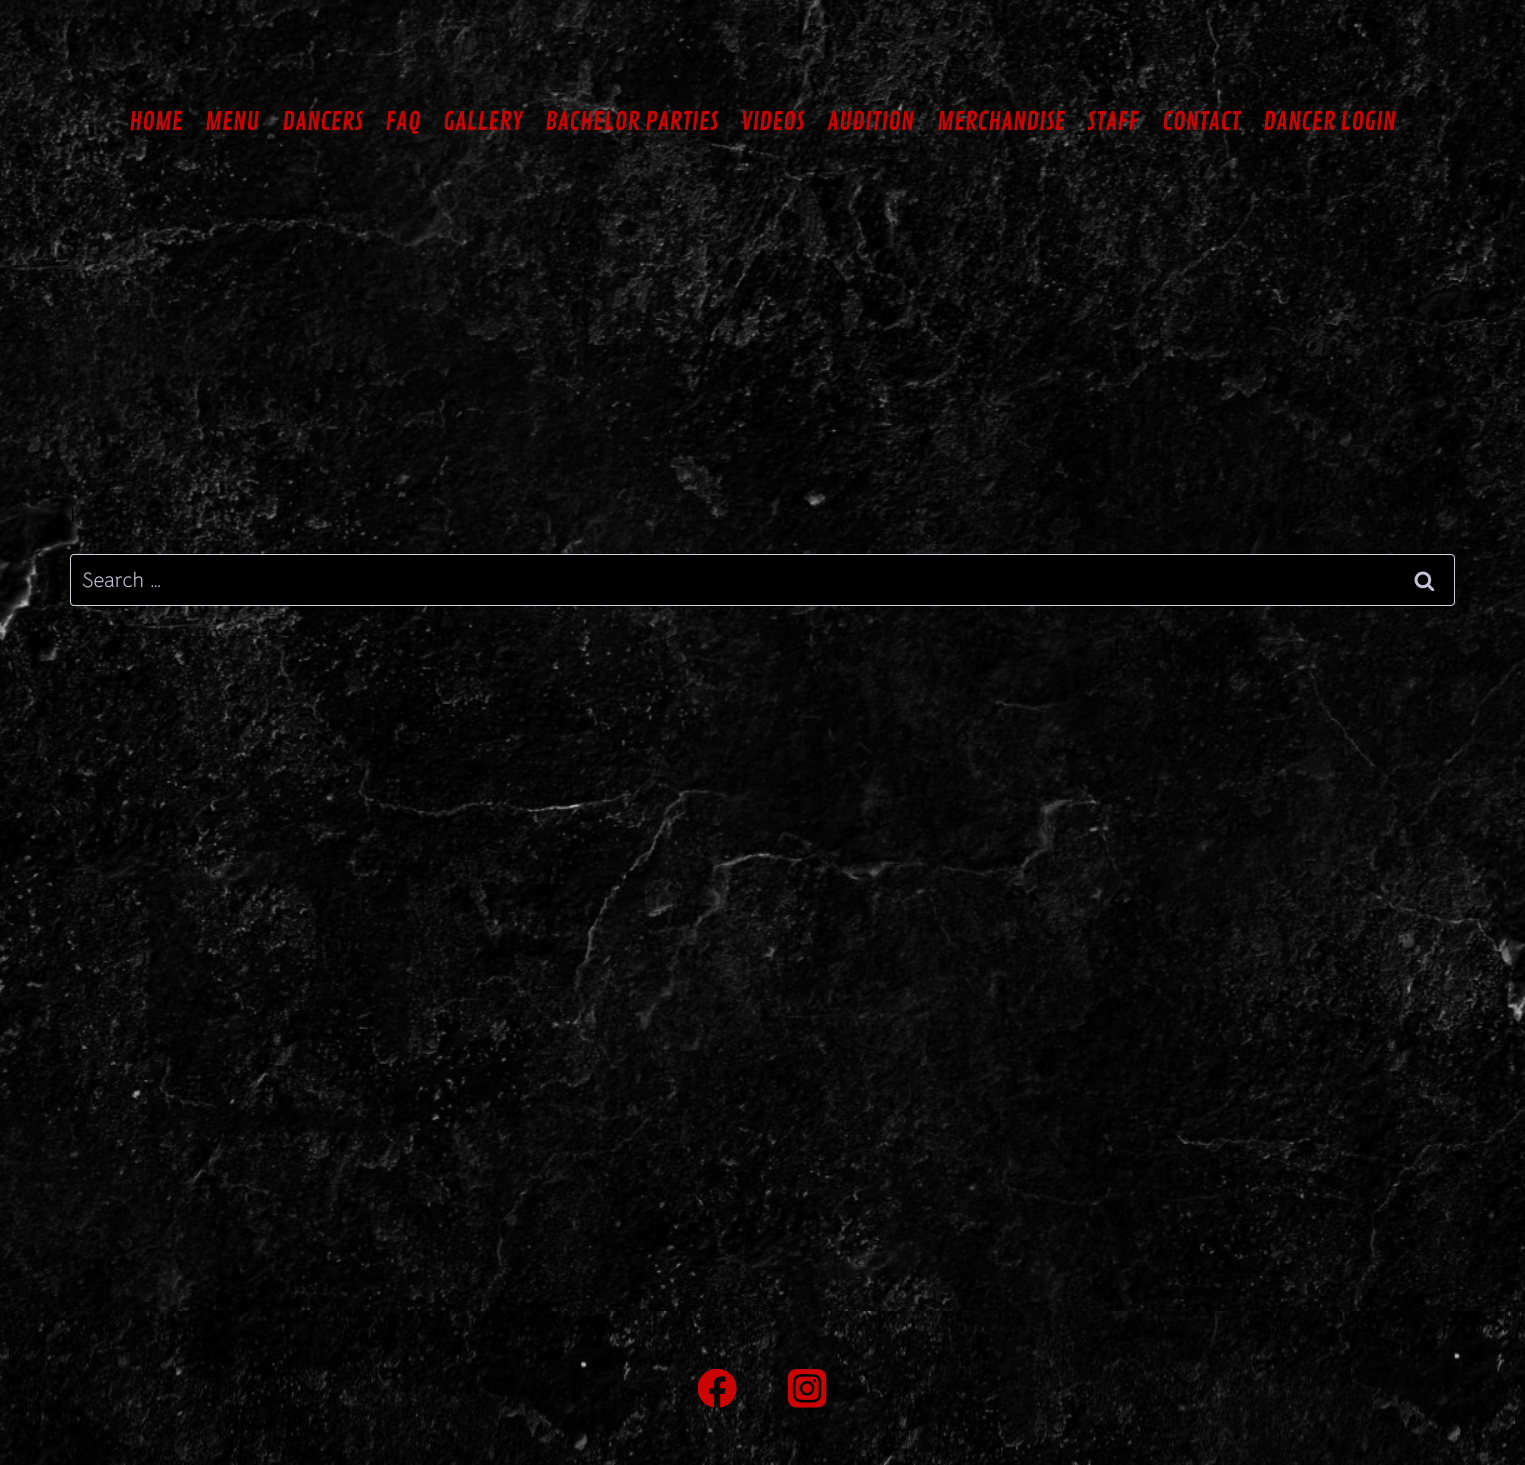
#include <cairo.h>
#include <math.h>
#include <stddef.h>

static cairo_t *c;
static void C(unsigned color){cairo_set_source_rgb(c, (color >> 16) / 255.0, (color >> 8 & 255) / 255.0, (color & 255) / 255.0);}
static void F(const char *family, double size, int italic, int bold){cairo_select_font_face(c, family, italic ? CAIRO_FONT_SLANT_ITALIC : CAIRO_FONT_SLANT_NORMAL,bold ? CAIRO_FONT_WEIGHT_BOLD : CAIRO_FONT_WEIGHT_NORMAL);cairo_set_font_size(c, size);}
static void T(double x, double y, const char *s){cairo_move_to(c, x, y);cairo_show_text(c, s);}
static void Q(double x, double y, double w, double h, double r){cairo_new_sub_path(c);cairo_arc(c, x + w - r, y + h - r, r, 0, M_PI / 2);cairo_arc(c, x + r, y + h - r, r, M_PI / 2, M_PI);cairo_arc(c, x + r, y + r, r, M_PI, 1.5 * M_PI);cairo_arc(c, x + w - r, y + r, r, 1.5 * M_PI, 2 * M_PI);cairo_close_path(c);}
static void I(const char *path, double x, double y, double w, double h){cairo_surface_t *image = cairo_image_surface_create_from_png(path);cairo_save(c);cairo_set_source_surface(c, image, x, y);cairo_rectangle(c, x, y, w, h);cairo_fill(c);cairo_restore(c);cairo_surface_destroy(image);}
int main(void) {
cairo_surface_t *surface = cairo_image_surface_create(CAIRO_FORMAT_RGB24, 1525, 1465);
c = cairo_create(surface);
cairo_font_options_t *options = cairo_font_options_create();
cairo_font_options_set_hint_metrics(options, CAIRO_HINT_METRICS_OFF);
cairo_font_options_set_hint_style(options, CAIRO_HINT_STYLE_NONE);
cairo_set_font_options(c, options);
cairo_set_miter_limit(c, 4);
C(0xffffff);
cairo_paint(c);
I("1.png",0,0,1525,1311);
F("Contrail One",25,0,0);
C(0xcc0303);
T(129,130,"HOME");
T(205,130,"MENU");
T(282,130,"DANCERS");
T(385,130,"FAQ");
T(443,130,"GALLERY");
T(545,130,"BACHELOR PARTIES");
T(741,130,"VIDEOS");
T(827,130,"AUDITION");
T(937,130,"MERCHANDISE");
T(1087,130,"STAFF");
T(1162,130,"CONTACT");
T(1263,130,"DANCER LOGIN");
F("Bellota Text",21,0,0);
C(0x000000);
T(70,522,"I");
Q(70.5,554.5,1384,51,3.5);
cairo_fill_preserve(c);
C(0xcbd5e0);
cairo_set_line_width(c,1);
cairo_stroke(c);
C(0xc3c2d6);
T(82,587,"Search …");
I("2.png",1414,571,21,20);
I("3.png",0,1311,1525,154);
I("4.png",698,1369,39,39);
I("5.png",788,1369,39,39);
cairo_surface_write_to_png(surface, "o.png");
cairo_font_options_destroy(options);
cairo_destroy(c);
cairo_surface_destroy(surface);
return 0;
}
